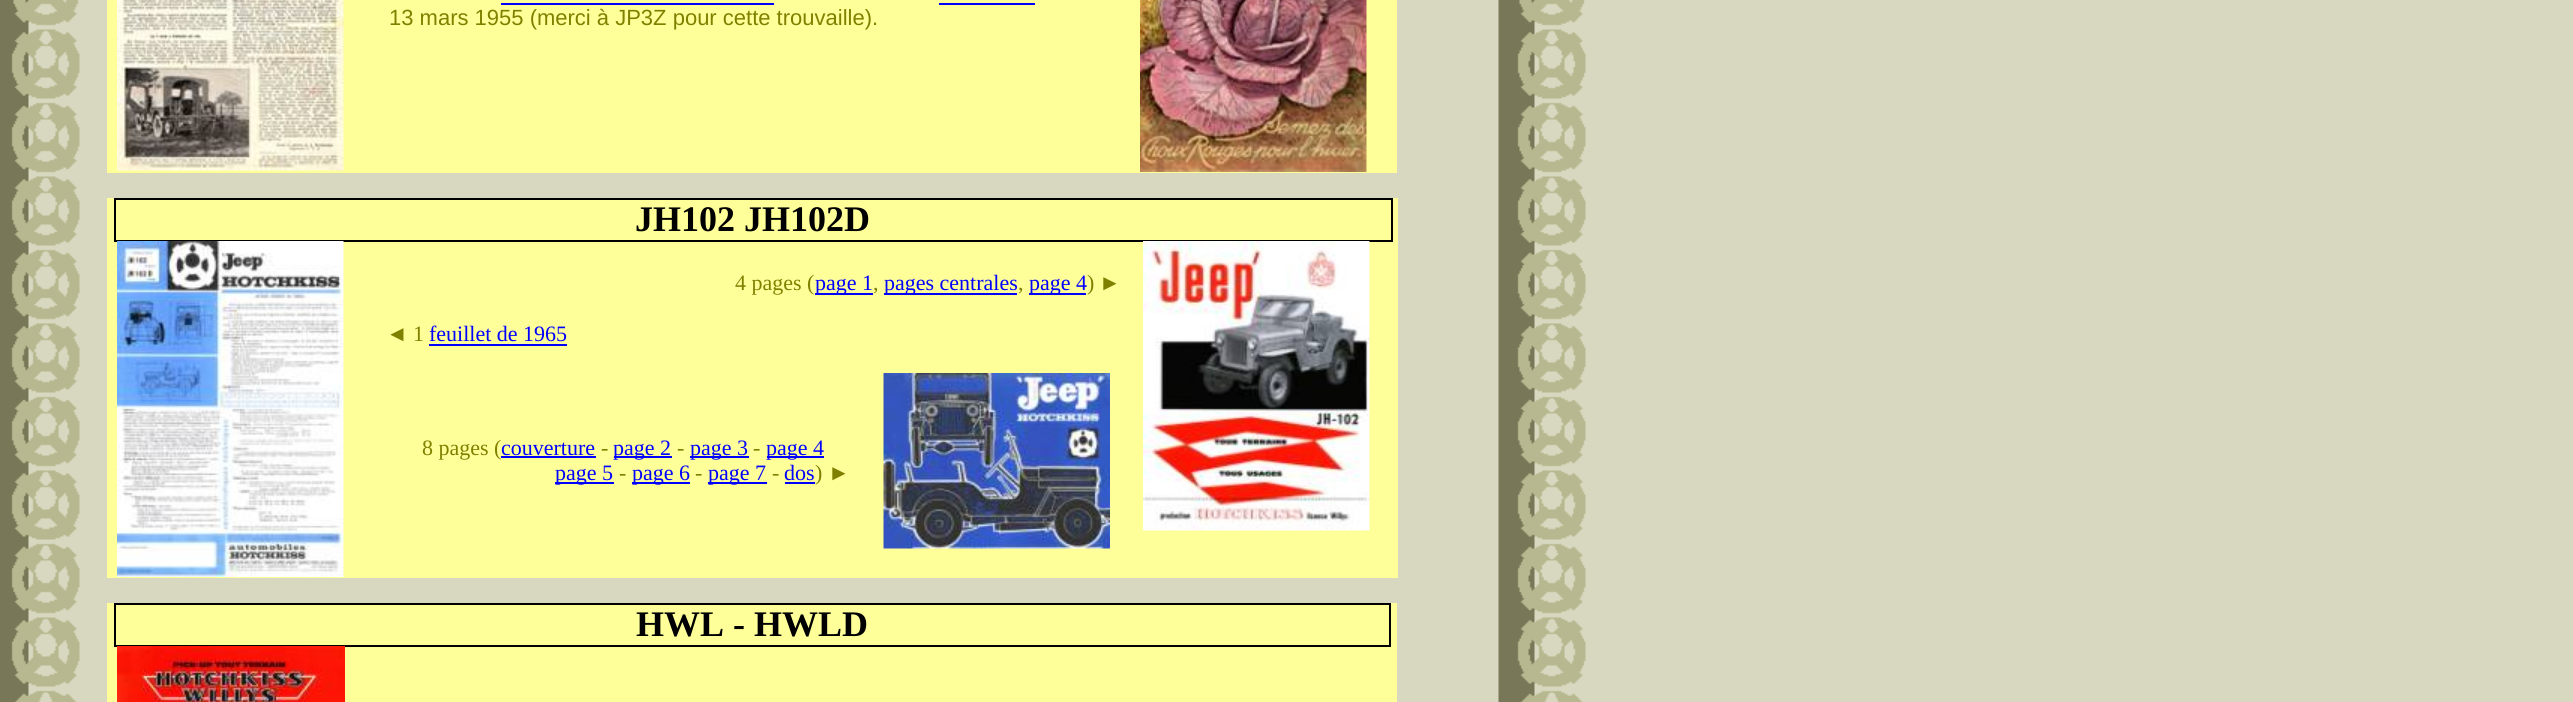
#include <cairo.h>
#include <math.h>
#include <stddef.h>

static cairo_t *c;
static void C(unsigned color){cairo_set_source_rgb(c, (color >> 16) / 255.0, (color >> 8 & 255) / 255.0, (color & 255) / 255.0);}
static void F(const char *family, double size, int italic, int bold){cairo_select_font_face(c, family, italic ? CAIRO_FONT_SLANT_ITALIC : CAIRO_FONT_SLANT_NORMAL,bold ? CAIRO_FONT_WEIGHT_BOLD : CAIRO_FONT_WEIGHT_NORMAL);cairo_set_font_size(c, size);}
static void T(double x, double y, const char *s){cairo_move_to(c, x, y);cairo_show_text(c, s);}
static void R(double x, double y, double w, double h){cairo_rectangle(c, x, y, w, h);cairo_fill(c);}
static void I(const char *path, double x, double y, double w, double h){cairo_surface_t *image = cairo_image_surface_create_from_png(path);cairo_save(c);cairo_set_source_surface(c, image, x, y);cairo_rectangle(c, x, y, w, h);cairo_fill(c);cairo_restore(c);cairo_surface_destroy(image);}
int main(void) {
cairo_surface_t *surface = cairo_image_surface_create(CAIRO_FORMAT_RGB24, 2573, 702);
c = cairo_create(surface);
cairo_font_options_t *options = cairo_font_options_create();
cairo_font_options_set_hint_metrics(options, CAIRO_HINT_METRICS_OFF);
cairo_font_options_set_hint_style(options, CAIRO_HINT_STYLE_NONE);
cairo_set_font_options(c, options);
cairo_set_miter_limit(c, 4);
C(0xffffff);
cairo_paint(c);
I("1.png",0,0,2573,702);
C(0xffff99);
R(107,0,1290,173);
I("2.png",117,0,227,171);
F("Liberation Sans",22,0,0);
C(0x808000);
T(389,25,"13 mars 1955 (merci à JP3Z pour cette trouvaille).");
C(0x0000ff);
R(501,3,273,2);
R(939,3,96,2);
I("3.png",1140,0,227,172);
C(0xffff99);
R(107,198,1291,380);
C(0x000000);
R(114,198,1278,2);
R(1391,198,2,44);
R(114,240,1278,2);
R(114,198,2,44);
F("Liberation Serif",36,0,1);
T(635,231,"JH102 JH102D");
I("4.png",117,241,227,336);
F("Liberation Serif",22,0,0);
C(0x808000);
T(735,290,"4 pages (");
C(0x0000ff);
R(815,293,58,2);
T(815,290,"page 1");
C(0x808000);
T(873,290,",");
C(0x0000ff);
R(884,293,133,2);
T(884,290,"pages centrales");
C(0x808000);
T(1018,290,",");
C(0x0000ff);
R(1029,293,57,2);
T(1029,290,"page 4");
C(0x808000);
T(1087,290,")");
F("Liberation Sans",22,0,0);
T(1099,290,"►");
T(386,341,"◄");
F("Liberation Serif",22,0,0);
T(413,341,"1");
C(0x0000ff);
T(429,341,"feuillet de 1965");
R(429,344,138,2);
C(0x808000);
T(422,455,"8 pages (");
C(0x0000ff);
R(501,456,95,2);
T(501,455,"couverture");
C(0x808000);
T(601,455,"-");
C(0x0000ff);
R(614,456,58,2);
T(613,455,"page 2");
C(0x808000);
T(677,455,"-");
C(0x0000ff);
R(690,456,59,2);
T(690,455,"page 3");
C(0x808000);
T(753,455,"-");
C(0x0000ff);
R(767,456,57,2);
T(766,455,"page 4");
R(555,482,59,2);
T(555,480,"page 5");
C(0x808000);
T(619,480,"-");
C(0x0000ff);
R(632,482,58,2);
T(632,480,"page 6");
C(0x808000);
T(695,480,"-");
C(0x0000ff);
R(708,482,59,2);
T(708,480,"page 7");
C(0x808000);
T(772,480,"-");
C(0x0000ff);
T(784,480,"dos");
C(0x808000);
T(815,480,")");
C(0x0000ff);
R(785,482,30,2);
F("Liberation Sans",22,0,0);
C(0x808000);
T(828,480,"►");
I("5.png",883,373,227,176);
I("6.png",1143,241,227,290);
C(0xffff99);
R(107,603,1290,99);
C(0x000000);
R(114,603,1277,2);
R(1389,603,2,44);
R(114,645,1277,2);
R(114,603,2,44);
F("Liberation Serif",36,0,1);
T(636,636,"HWL - HWLD");
I("7.png",117,646,228,56);
cairo_surface_write_to_png(surface, "o.png");
cairo_font_options_destroy(options);
cairo_destroy(c);
cairo_surface_destroy(surface);
return 0;
}
